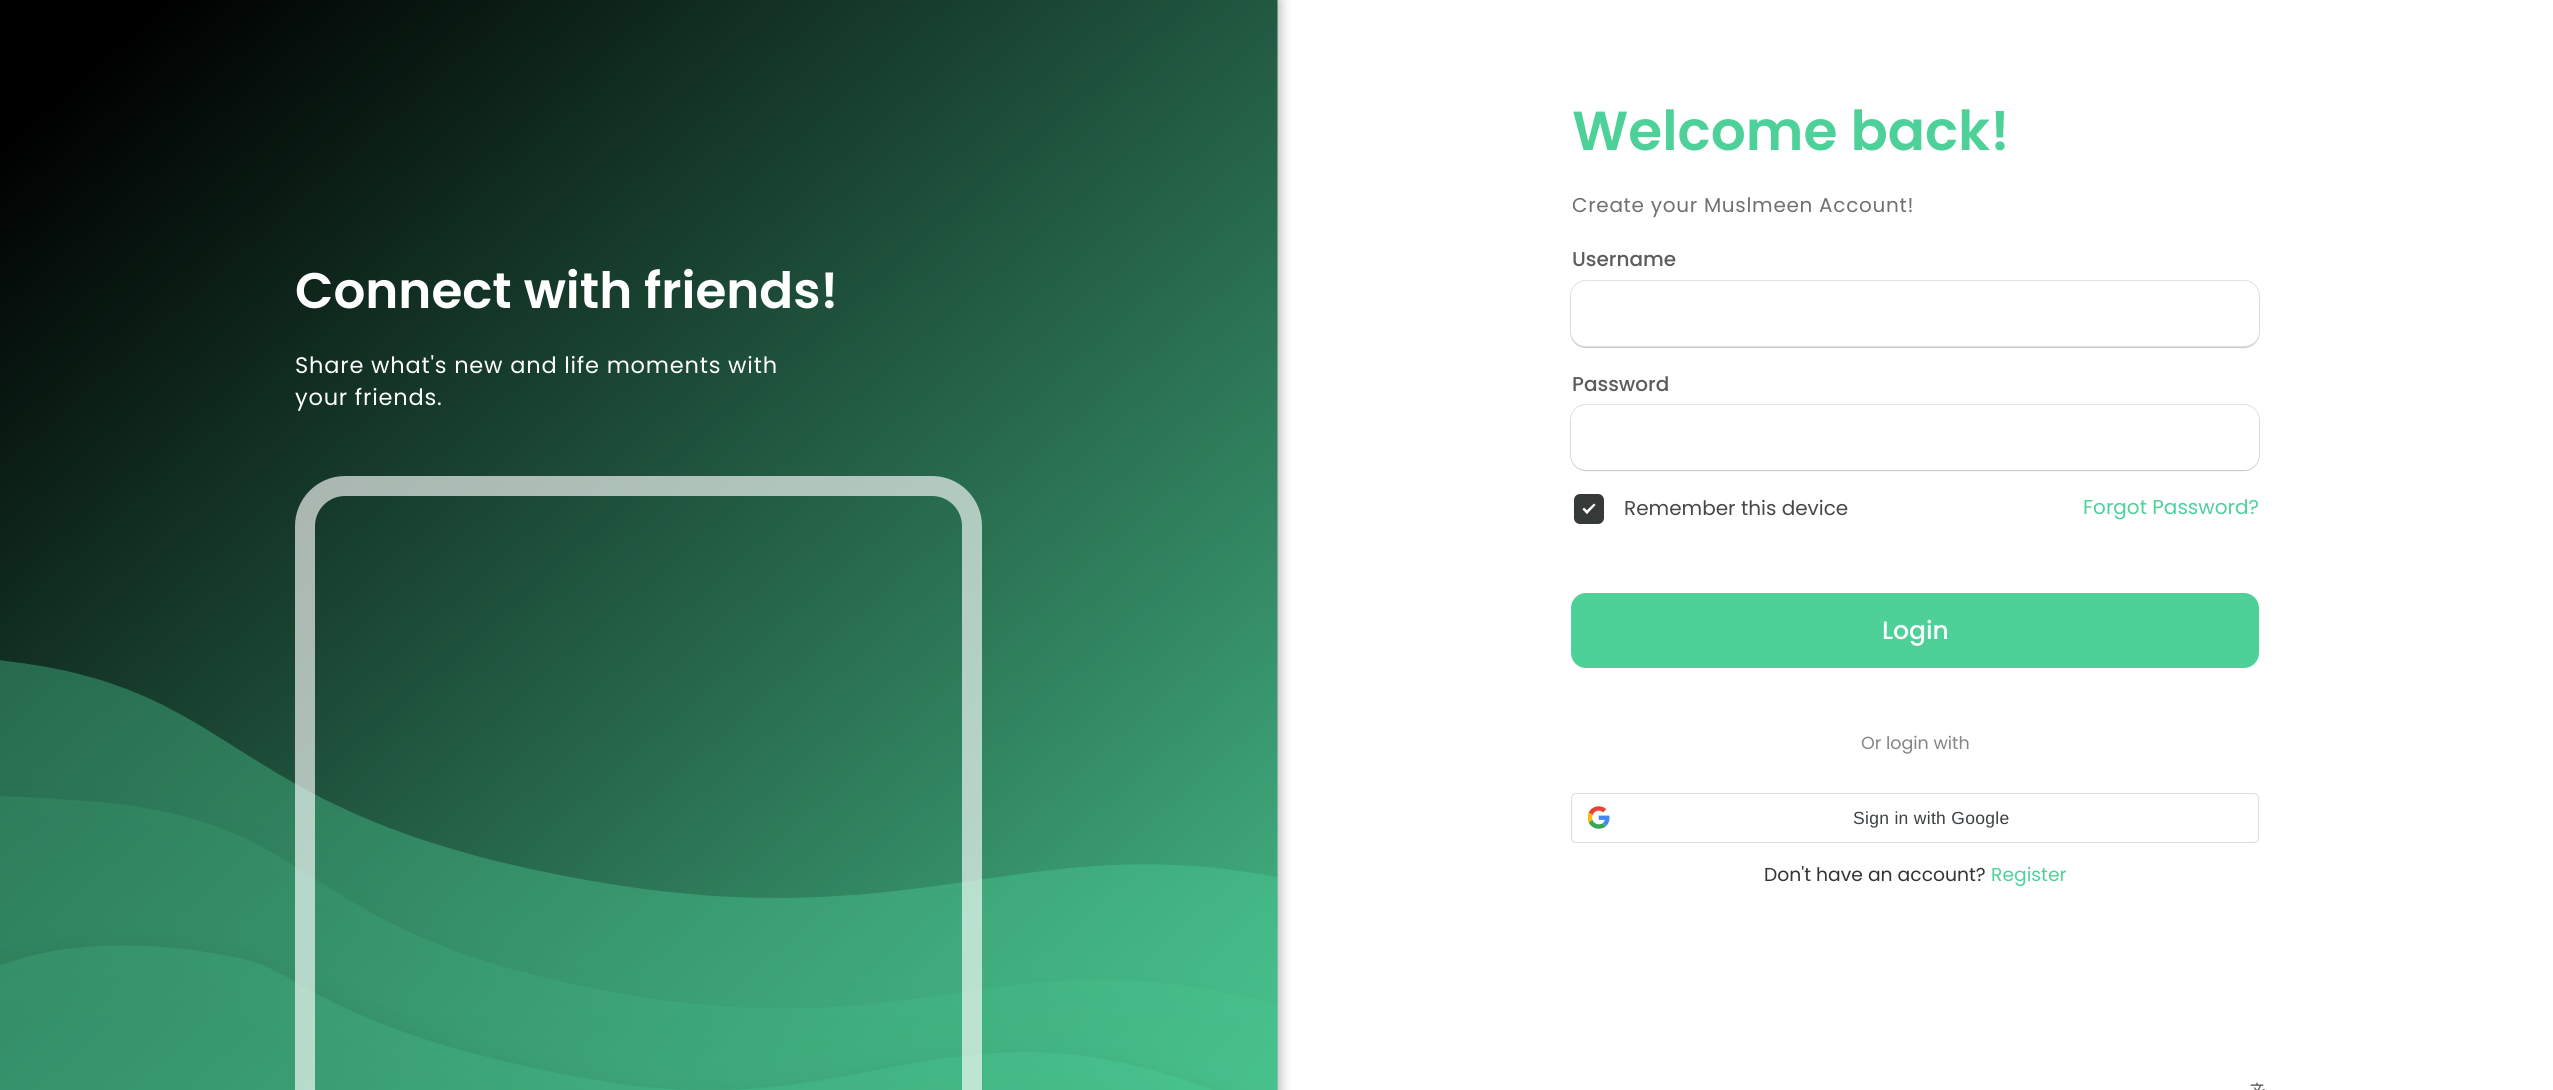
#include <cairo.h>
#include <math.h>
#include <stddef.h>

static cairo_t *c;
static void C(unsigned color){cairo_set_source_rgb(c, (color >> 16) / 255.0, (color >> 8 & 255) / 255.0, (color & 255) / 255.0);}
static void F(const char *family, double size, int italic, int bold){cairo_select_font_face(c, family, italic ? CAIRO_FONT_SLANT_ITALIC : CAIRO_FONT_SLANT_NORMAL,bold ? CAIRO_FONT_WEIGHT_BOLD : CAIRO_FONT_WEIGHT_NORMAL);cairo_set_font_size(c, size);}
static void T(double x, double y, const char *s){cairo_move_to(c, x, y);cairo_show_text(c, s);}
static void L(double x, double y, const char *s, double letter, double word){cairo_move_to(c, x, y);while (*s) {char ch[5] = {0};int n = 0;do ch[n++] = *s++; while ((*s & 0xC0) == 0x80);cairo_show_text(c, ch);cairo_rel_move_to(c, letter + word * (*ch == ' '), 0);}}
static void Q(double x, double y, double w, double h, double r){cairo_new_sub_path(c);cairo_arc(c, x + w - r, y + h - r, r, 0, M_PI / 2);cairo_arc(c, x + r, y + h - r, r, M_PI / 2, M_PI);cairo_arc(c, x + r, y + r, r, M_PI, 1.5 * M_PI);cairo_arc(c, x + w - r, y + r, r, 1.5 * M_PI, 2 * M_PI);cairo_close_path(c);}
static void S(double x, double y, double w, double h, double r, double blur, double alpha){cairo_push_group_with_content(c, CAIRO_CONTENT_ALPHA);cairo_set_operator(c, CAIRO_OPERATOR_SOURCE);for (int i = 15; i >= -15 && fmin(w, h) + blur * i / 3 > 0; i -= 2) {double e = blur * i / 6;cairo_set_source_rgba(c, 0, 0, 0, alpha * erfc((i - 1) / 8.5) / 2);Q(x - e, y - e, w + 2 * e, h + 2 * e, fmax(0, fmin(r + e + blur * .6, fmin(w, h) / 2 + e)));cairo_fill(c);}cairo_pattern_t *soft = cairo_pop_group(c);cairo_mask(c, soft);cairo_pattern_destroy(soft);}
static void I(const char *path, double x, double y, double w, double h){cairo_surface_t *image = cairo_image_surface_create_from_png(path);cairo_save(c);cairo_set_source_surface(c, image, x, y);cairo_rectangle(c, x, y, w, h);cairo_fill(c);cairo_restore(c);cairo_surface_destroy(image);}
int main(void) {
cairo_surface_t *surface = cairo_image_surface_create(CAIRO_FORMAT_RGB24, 2553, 1090);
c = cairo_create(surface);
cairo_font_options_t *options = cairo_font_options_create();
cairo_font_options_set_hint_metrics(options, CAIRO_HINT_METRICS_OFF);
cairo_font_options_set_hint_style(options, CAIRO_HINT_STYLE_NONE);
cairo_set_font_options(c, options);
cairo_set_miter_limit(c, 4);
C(0xffffff);
cairo_paint(c);
C(0x000000);
S(3,0,1277,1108,0,6,.3);
I("1.png",0,0,1278,1090);
F("Poppins SemiBold",50,0,0);
C(0xffffff);
T(295,308,"Connect with friends!");
F("Poppins",22.5,0,0);
L(295,373,"Share what's new and life moments with",.8,0);
L(295,405,"your friends.",.8,0);
cairo_set_source_rgba(c,1,1,1,0.64);
cairo_set_fill_rule(c,CAIRO_FILL_RULE_EVEN_ODD);
cairo_new_path(c);
cairo_move_to(c,345,476);
cairo_line_to(c,932,476);
cairo_curve_to(c,960,476,982,499,982,526);
cairo_line_to(c,982,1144);
cairo_line_to(c,295,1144);
cairo_line_to(c,295,526);
cairo_curve_to(c,295,499,317,476,345,476);
cairo_close_path(c);
cairo_move_to(c,345,496);
cairo_line_to(c,932,496);
cairo_curve_to(c,949,496,962,510,962,526);
cairo_line_to(c,962,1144);
cairo_line_to(c,315,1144);
cairo_line_to(c,315,526);
cairo_curve_to(c,315,510,328,496,345,496);
cairo_close_path(c);
cairo_fill(c);
F("Poppins SemiBold",55,0,0);
C(0x4ed199);
T(1572,150,"Welcome back!");
F("Poppins",20,0,0);
C(0x707070);
L(1572,212,"Create your Muslmeen Account!",.7,0);
F("Poppins Medium",20,0,0);
C(0x5c5c5c);
T(1572,266,"Username");
cairo_save(c);
cairo_new_path(c);
cairo_move_to(c,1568,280);
cairo_line_to(c,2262,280);
cairo_line_to(c,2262,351);
cairo_line_to(c,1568,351);
cairo_close_path(c);
cairo_move_to(c,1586,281);
cairo_line_to(c,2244,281);
cairo_curve_to(c,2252.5,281,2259,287.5,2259,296);
cairo_line_to(c,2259,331);
cairo_curve_to(c,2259,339.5,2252.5,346,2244,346);
cairo_line_to(c,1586,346);
cairo_curve_to(c,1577.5,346,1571,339.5,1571,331);
cairo_line_to(c,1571,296);
cairo_curve_to(c,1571,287.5,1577.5,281,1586,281);
cairo_close_path(c);
cairo_clip(c);
C(0x000000);
S(1571,283,688,65,15,.5,.12);
cairo_restore(c);
Q(1570.5,280.5,689,67,15.5);
cairo_set_source_rgba(c,0.235,0.259,0.341,0.16);
cairo_set_line_width(c,1);
cairo_stroke(c);
C(0x5c5c5c);
T(1572,391,"Password");
cairo_save(c);
cairo_new_path(c);
cairo_move_to(c,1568,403);
cairo_line_to(c,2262,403);
cairo_line_to(c,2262,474);
cairo_line_to(c,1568,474);
cairo_close_path(c);
cairo_move_to(c,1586,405);
cairo_line_to(c,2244,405);
cairo_curve_to(c,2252.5,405,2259,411.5,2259,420);
cairo_line_to(c,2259,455);
cairo_curve_to(c,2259,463.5,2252.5,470,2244,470);
cairo_line_to(c,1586,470);
cairo_curve_to(c,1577.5,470,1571,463.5,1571,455);
cairo_line_to(c,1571,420);
cairo_curve_to(c,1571,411.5,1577.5,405,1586,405);
cairo_close_path(c);
cairo_clip(c);
C(0x000000);
S(1571,406,688,65,15,.5,.12);
cairo_restore(c);
Q(1570.5,404.5,689,66,15.5);
cairo_set_source_rgba(c,0.235,0.259,0.341,0.16);
cairo_stroke(c);
C(0x353938);
Q(1575.5,495.5,27,27,4.5);
cairo_fill_preserve(c);
cairo_set_line_width(c,3);
cairo_stroke(c);
F("Poppins",20,0,0);
C(0x474747);
T(1624,515,"Remember this device");
C(0xffffff);
cairo_set_fill_rule(c,CAIRO_FILL_RULE_WINDING);
cairo_new_path(c);
cairo_move_to(c,1585,512);
cairo_line_to(c,1594,503.5);
cairo_line_to(c,1595.5,505);
cairo_line_to(c,1587,514);
cairo_close_path(c);
cairo_fill(c);
cairo_new_path(c);
cairo_move_to(c,1582.5,509.5);
cairo_line_to(c,1584,507.5);
cairo_line_to(c,1588.5,512);
cairo_line_to(c,1587,514);
cairo_close_path(c);
cairo_fill(c);
C(0x4ed199);
T(2083,514,"Forgot Password?");
Q(1571,593,688,75,15);
cairo_fill(c);
F("Poppins Medium",25,0,0);
C(0xffffff);
T(1882,639,"Login");
F("Poppins",17.5,0,0);
C(0x858585);
T(1861,749,"Or login with");
Q(1571.5,793.5,687,49,4.5);
C(0xdadce0);
cairo_set_line_width(c,1);
cairo_stroke(c);
I("2.png",1588,806,22,23);
F("Liberation Sans",17.5,0,0);
C(0x3c4043);
L(1853,824,"Sign in with Google",.3,0);
F("Poppins",18.75,0,0);
C(0x333333);
T(1764,881,"Don't have an account?");
C(0x4ed199);
T(1991,881,"Register");
I("3.png",2250,1082,15,8);
cairo_surface_write_to_png(surface, "o.png");
cairo_font_options_destroy(options);
cairo_destroy(c);
cairo_surface_destroy(surface);
return 0;
}
